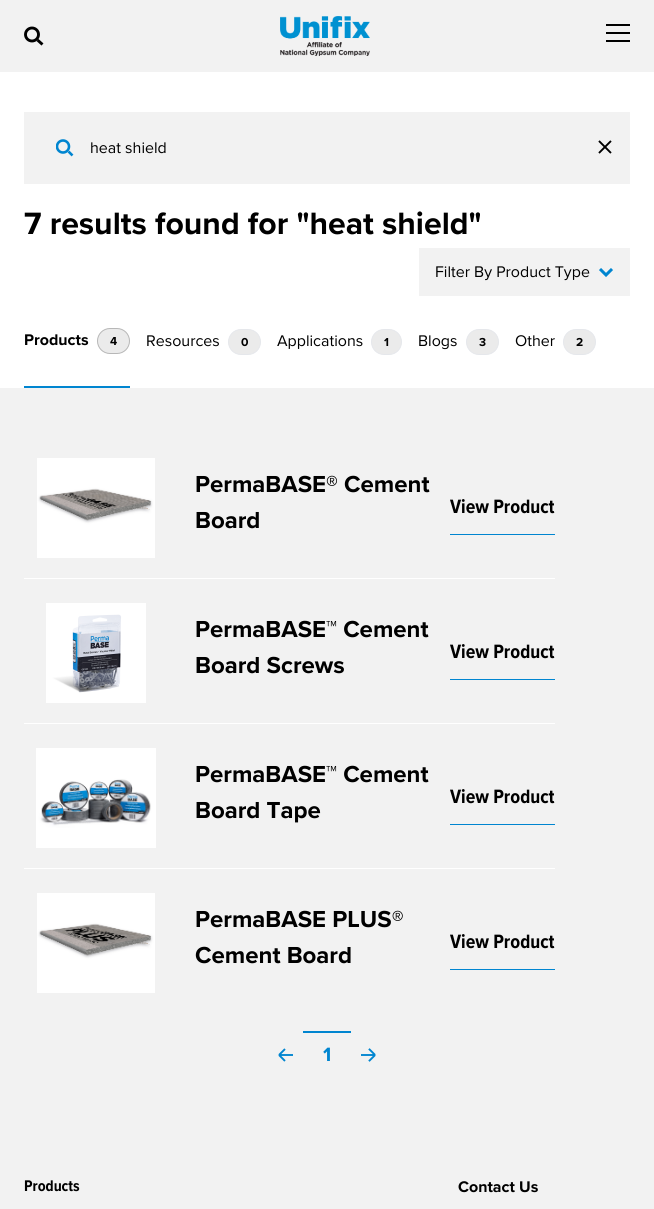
#include <cairo.h>
#include <math.h>
#include <stddef.h>

static cairo_t *c;
static void C(unsigned color){cairo_set_source_rgb(c, (color >> 16) / 255.0, (color >> 8 & 255) / 255.0, (color & 255) / 255.0);}
static void F(const char *family, double size, int italic, int bold){cairo_select_font_face(c, family, italic ? CAIRO_FONT_SLANT_ITALIC : CAIRO_FONT_SLANT_NORMAL,bold ? CAIRO_FONT_WEIGHT_BOLD : CAIRO_FONT_WEIGHT_NORMAL);cairo_set_font_size(c, size);}
static void T(double x, double y, const char *s){cairo_move_to(c, x, y);cairo_show_text(c, s);}
static void R(double x, double y, double w, double h){cairo_rectangle(c, x, y, w, h);cairo_fill(c);}
static void Q(double x, double y, double w, double h, double r){cairo_new_sub_path(c);cairo_arc(c, x + w - r, y + h - r, r, 0, M_PI / 2);cairo_arc(c, x + r, y + h - r, r, M_PI / 2, M_PI);cairo_arc(c, x + r, y + r, r, M_PI, 1.5 * M_PI);cairo_arc(c, x + w - r, y + r, r, 1.5 * M_PI, 2 * M_PI);cairo_close_path(c);}
static void I(const char *path, double x, double y, double w, double h){cairo_surface_t *image = cairo_image_surface_create_from_png(path);cairo_save(c);cairo_set_source_surface(c, image, x, y);cairo_rectangle(c, x, y, w, h);cairo_fill(c);cairo_restore(c);cairo_surface_destroy(image);}
int main(void) {
cairo_surface_t *surface = cairo_image_surface_create(CAIRO_FORMAT_RGB24, 654, 1209);
c = cairo_create(surface);
cairo_font_options_t *options = cairo_font_options_create();
cairo_font_options_set_hint_metrics(options, CAIRO_HINT_METRICS_OFF);
cairo_font_options_set_hint_style(options, CAIRO_HINT_STYLE_NONE);
cairo_set_font_options(c, options);
cairo_set_miter_limit(c, 4);
C(0xf2f2f2);
cairo_paint(c);
cairo_arc(c,32,34.5,6.5,0,2 * M_PI);
C(0x000000);
cairo_set_line_width(c,2.9);
cairo_stroke(c);
cairo_new_path(c);
cairo_move_to(c,37.5,40);
cairo_line_to(c,42.5,44.5);
cairo_stroke(c);
I("1.png",280,16,90,40);
R(606,24,24,2);
R(606,40,24,2);
R(606,32,24,2);
C(0xffffff);
R(0,72,654,316);
C(0xf2f2f2);
R(24,112,606,72);
cairo_save(c);
cairo_rectangle(c,56,138,18,20);
cairo_clip(c);
cairo_arc(c,63,146.5,6,0,2 * M_PI);
C(0x0085d0);
cairo_set_line_width(c,2.6);
cairo_stroke(c);
cairo_restore(c);
cairo_new_path(c);
cairo_move_to(c,68.5,151.5);
cairo_line_to(c,72.5,155.5);
C(0x0085d0);
cairo_set_line_width(c,2.6);
cairo_stroke(c);
F("Proxima Nova",16,0,0);
C(0x000000);
T(90,153,"heat shield");
F("Proxima Nova",36,0,0);
T(596,159,"×");
F("Proxima Nova",32,0,1);
T(24,234,"7 results found for \"heat shield\"");
C(0xf2f2f2);
R(419,248,211,48);
F("Proxima Nova",16,0,0);
C(0x000000);
T(435,277,"Filter By Product Type");
cairo_new_path(c);
cairo_move_to(c,612,269);
cairo_line_to(c,606,275);
cairo_line_to(c,600,269);
C(0x0085d0);
cairo_set_line_width(c,3);
cairo_stroke(c);
R(24,386,106,2);
F("Proxima Nova",16,0,1);
C(0x000000);
T(24,345,"Products");
C(0xebebeb);
Q(97.5,328.5,32,25,12.5);
cairo_fill_preserve(c);
C(0xb7b7b7);
cairo_set_line_width(c,1);
cairo_stroke(c);
F("Proxima Nova",12,0,1);
C(0x000000);
T(110,345,"4");
F("Proxima Nova",16,0,0);
T(146,346,"Resources");
C(0xebebeb);
Q(228.5,329.5,32,25,12.5);
cairo_fill_preserve(c);
C(0xe5e7eb);
cairo_stroke(c);
F("Proxima Nova",12,0,1);
C(0x000000);
T(241,346,"0");
F("Proxima Nova",16,0,0);
T(277,346,"Applications");
C(0xebebeb);
Q(371.5,329.5,30,25,12.5);
cairo_fill_preserve(c);
C(0xe5e7eb);
cairo_stroke(c);
F("Proxima Nova",12,0,1);
C(0x000000);
T(384,346,"1");
F("Proxima Nova",16,0,0);
T(418,346,"Blogs");
C(0xebebeb);
Q(466.5,329.5,32,25,12.5);
cairo_fill_preserve(c);
C(0xe5e7eb);
cairo_stroke(c);
F("Proxima Nova",12,0,1);
C(0x000000);
T(479,346,"3");
F("Proxima Nova",16,0,0);
T(515,346,"Other");
C(0xebebeb);
Q(563.5,329.5,32,25,12.5);
cairo_fill_preserve(c);
C(0xe5e7eb);
cairo_stroke(c);
F("Proxima Nova",12,0,1);
C(0x000000);
T(576,346,"2");
C(0xffffff);
R(24,578,531,1);
I("2.png",37,458,118,100);
F("Proxima Nova",24,0,1);
C(0x000000);
T(195,492,"PermaBASE® Cement");
T(195,528,"Board");
F("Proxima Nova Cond",20,0,1);
T(450,513,"View Product");
C(0x0085d0);
R(450,534,105,1);
C(0xffffff);
R(24,723,531,1);
I("3.png",46,603,100,100);
F("Proxima Nova",24,0,1);
C(0x000000);
T(195,637,"PermaBASE™ Cement");
T(195,673,"Board Screws");
F("Proxima Nova Cond",20,0,1);
T(450,658,"View Product");
C(0x0085d0);
R(450,679,105,1);
C(0xffffff);
R(24,868,531,1);
I("4.png",36,748,120,100);
F("Proxima Nova",24,0,1);
C(0x000000);
T(195,782,"PermaBASE™ Cement");
T(195,818,"Board Tape");
F("Proxima Nova Cond",20,0,1);
T(450,803,"View Product");
C(0x0085d0);
R(450,824,105,1);
I("5.png",37,893,118,100);
F("Proxima Nova",24,0,1);
C(0x000000);
T(195,927,"PermaBASE PLUS®");
T(195,963,"Cement Board");
F("Proxima Nova Cond",20,0,1);
T(450,948,"View Product");
C(0x0085d0);
R(450,969,105,1);
cairo_new_path(c);
cairo_move_to(c,293,1055);
cairo_line_to(c,279,1055);
cairo_move_to(c,279,1055);
cairo_line_to(c,285,1049);
cairo_move_to(c,279,1055);
cairo_line_to(c,285,1061);
cairo_set_line_width(c,1.9);
cairo_stroke(c);
F("Proxima Nova",20,0,1);
T(323,1061,"1");
R(303,1031,48,2);
I("6.png",361,1048,15,14);
F("Proxima Nova Cond",16,0,1);
C(0x000000);
T(24,1191,"Products");
F("Proxima Nova",16,0,1);
T(458,1192,"Contact Us");
cairo_surface_write_to_png(surface, "o.png");
cairo_font_options_destroy(options);
cairo_destroy(c);
cairo_surface_destroy(surface);
return 0;
}
